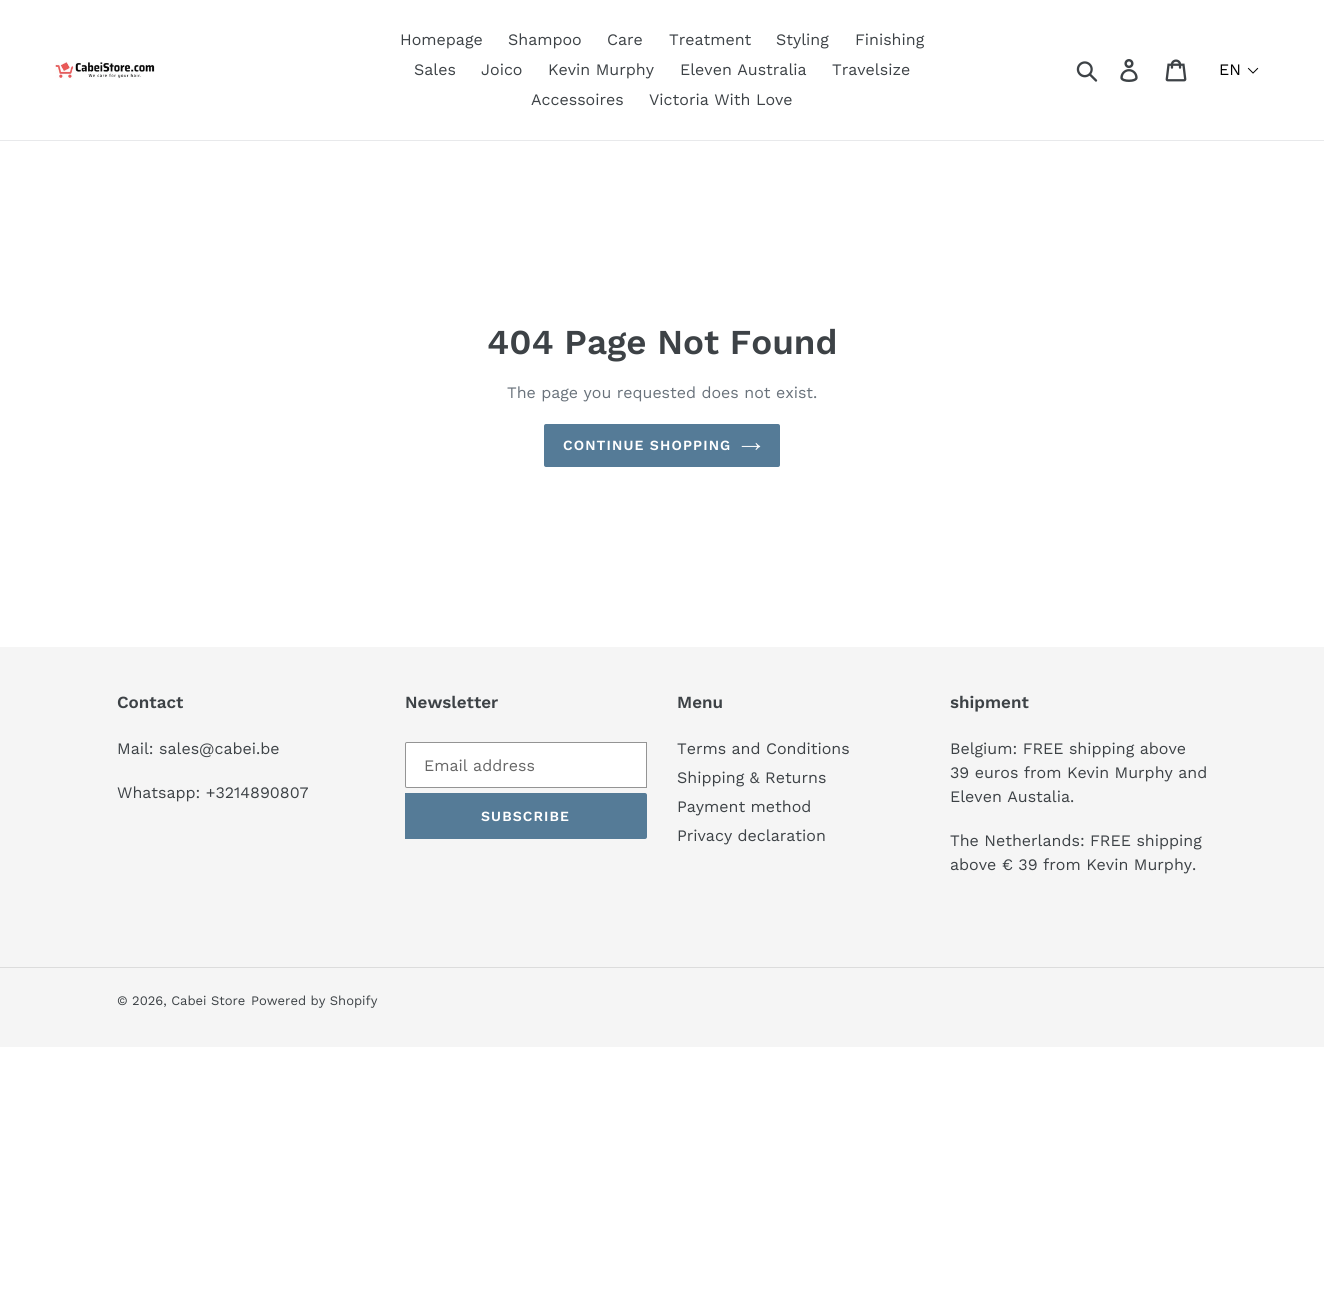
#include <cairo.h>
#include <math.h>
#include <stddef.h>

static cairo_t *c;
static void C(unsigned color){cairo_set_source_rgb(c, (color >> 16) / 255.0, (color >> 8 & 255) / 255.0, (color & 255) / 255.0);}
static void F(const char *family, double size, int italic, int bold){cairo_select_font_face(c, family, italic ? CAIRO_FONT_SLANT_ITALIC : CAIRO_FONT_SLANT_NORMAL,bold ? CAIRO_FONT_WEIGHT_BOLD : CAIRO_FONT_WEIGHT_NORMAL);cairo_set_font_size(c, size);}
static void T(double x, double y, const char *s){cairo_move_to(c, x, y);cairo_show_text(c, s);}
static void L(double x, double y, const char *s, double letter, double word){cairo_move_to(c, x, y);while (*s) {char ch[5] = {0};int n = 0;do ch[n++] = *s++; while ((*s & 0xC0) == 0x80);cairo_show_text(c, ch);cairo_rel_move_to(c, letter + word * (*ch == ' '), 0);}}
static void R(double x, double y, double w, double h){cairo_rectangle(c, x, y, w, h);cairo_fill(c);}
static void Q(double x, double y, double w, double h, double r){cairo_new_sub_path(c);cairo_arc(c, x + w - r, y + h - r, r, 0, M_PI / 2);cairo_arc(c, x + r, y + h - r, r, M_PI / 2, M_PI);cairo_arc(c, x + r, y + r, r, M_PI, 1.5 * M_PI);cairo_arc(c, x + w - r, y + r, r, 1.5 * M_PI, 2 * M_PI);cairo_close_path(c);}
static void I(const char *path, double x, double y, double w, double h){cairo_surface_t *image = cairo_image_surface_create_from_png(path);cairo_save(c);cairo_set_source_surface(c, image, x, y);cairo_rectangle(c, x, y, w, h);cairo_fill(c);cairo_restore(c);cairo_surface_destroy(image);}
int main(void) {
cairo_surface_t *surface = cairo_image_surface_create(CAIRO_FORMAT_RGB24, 1324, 1304);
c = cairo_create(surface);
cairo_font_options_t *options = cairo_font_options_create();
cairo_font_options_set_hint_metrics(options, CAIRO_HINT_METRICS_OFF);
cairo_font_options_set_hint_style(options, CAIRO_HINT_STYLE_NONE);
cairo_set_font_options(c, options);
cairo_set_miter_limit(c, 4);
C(0xffffff);
cairo_paint(c);
C(0xe8e9eb);
R(0,140,1324,1);
I("1.png",55,61,100,18);
F("Work Sans",16,0,0);
C(0x3d4246);
T(400,45,"Homepage");
T(508,45,"Shampoo");
T(607,45,"Care");
T(669,45,"Treatment");
T(776,45,"Styling");
T(855,45,"Finishing");
T(414,75,"Sales");
T(481,75,"Joico");
T(548,75,"Kevin Murphy");
T(680,75,"Eleven Australia");
T(832,75,"Travelsize");
T(531,105,"Accessoires");
T(649,105,"Victoria With Love");
I("2.png",1076,61,22,21);
I("3.png",1120,59,18,23);
I("4.png",1165,59,22,23);
I("5.png",1247,67,12,7);
C(0x000000);
T(1219,75,"EN");
F("Work Sans SemiBold",35,0,0);
C(0x3d4246);
T(487,354,"404 Page Not Found");
F("Work Sans",16,0,0);
C(0x69727b);
T(507,398,"The page you requested does not exist.");
C(0x557b97);
Q(544,424,236,43,2);
cairo_fill(c);
F("Work Sans SemiBold",14,0,0);
C(0xffffff);
L(563,450,"CONTINUE SHOPPING",1.1,0);
I("6.png",741,442,20,8);
C(0xf5f5f5);
R(0,647,1324,400);
F("Work Sans SemiBold",17,0,0);
C(0x3d4246);
T(117,708,"Contact");
F("Work Sans",16,0,0);
T(117,754,"Mail: sales@cabei.be");
T(117,798,"Whatsapp: +3214890807");
F("Work Sans SemiBold",17,0,0);
T(405,708,"Newsletter");
C(0xffffff);
cairo_new_path(c);
cairo_move_to(c,407,742.5);
cairo_line_to(c,646.5,742.5);
cairo_line_to(c,646.5,787.5);
cairo_line_to(c,407,787.5);
cairo_curve_to(c,406,787.5,405.5,787,405.5,786);
cairo_line_to(c,405.5,744);
cairo_curve_to(c,405.5,743,406,742.5,407,742.5);
cairo_close_path(c);
cairo_fill_preserve(c);
C(0x949494);
cairo_set_line_width(c,1);
cairo_stroke(c);
F("Work Sans",16,0,0);
C(0x666666);
T(424,771,"Email address");
C(0x557b97);
cairo_new_path(c);
cairo_move_to(c,405,793);
cairo_line_to(c,645,793);
cairo_curve_to(c,646,793,647,794,647,795);
cairo_line_to(c,647,837);
cairo_curve_to(c,647,838,646,839,645,839);
cairo_line_to(c,405,839);
cairo_close_path(c);
cairo_fill(c);
F("Work Sans SemiBold",14,0,0);
C(0xffffff);
L(481,821,"SUBSCRIBE",1.1,0);
F("Work Sans SemiBold",17,0,0);
C(0x3d4246);
T(677,708,"Menu");
F("Work Sans",16,0,0);
T(677,754,"Terms and Conditions");
T(677,783,"Shipping & Returns");
T(677,812,"Payment method");
T(677,841,"Privacy declaration");
F("Work Sans SemiBold",17,0,0);
T(950,708,"shipment");
F("Work Sans",16,0,0);
T(950,754,"Belgium: FREE shipping above");
T(950,778,"39 euros from Kevin Murphy and");
T(950,802,"Eleven Austalia.");
T(950,846,"The Netherlands: FREE shipping");
T(950,870,"above € 39 from Kevin Murphy.");
C(0xdcdcdc);
R(0,967,1324,1);
F("Work Sans",13,0,0);
C(0x3d4246);
T(117,1005,"© 2026, Cabei Store");
T(251,1005,"Powered by Shopify");
cairo_surface_write_to_png(surface, "o.png");
cairo_font_options_destroy(options);
cairo_destroy(c);
cairo_surface_destroy(surface);
return 0;
}
